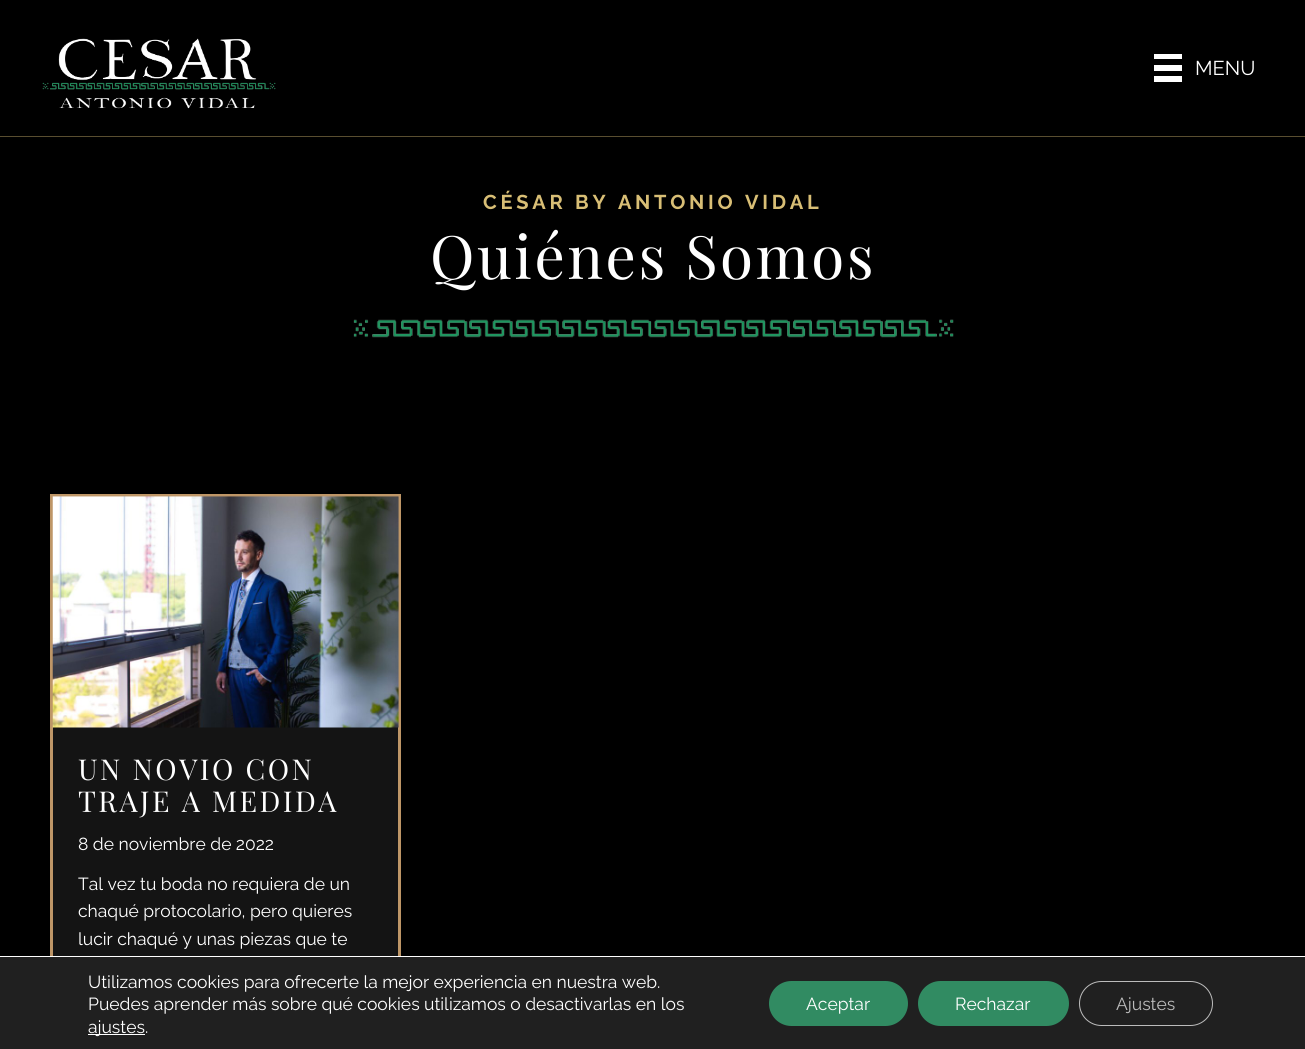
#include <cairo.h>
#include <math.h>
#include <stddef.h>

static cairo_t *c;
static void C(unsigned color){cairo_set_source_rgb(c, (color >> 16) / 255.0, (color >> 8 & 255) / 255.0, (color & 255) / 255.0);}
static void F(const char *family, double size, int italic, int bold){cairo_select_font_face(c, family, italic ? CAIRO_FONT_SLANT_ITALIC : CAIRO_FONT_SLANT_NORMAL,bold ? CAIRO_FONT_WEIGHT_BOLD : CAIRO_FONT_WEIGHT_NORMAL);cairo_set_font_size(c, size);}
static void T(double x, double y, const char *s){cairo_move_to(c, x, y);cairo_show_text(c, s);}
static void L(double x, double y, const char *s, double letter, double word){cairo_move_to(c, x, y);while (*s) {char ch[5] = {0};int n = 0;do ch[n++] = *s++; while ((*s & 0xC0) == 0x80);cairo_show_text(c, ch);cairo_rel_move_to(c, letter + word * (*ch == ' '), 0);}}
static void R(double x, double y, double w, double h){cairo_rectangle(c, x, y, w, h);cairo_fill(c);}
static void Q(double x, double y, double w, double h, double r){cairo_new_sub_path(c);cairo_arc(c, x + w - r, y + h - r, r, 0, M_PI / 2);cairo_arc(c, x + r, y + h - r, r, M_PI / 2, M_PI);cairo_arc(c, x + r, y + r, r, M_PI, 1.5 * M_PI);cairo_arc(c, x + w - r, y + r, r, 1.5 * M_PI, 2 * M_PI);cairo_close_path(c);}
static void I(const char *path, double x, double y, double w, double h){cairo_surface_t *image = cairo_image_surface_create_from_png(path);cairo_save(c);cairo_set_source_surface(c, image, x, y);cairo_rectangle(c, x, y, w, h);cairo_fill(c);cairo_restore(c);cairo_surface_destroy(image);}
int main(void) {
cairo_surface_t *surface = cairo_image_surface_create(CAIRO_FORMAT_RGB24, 1305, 1049);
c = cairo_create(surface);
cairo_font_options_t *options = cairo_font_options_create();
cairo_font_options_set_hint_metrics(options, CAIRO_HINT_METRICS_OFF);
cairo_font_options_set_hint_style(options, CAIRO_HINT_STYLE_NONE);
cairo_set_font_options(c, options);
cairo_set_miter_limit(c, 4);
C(0x000000);
cairo_paint(c);
C(0x594e30);
R(0,136,1305,1);
I("1.png",42,38,234,71);
C(0xffffff);
R(1154,54,28,5);
R(1154,65,28,6);
R(1154,76,28,6);
F("Raleway",20,0,0);
T(1195,75,"MENU");
F("Raleway",20,0,1);
C(0xd8be75);
L(483,209,"CÉSAR BY ANTONIO VIDAL",3.75,0);
F("Playfair Display",60,0,0);
C(0xffffff);
L(430,279,"Quiénes Somos",2.5,0);
I("2.png",353,319,601,19);
C(0x141414);
R(53,727,345,229);
cairo_rectangle(c,51.5,495.5,348,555);
C(0xbe9667);
cairo_set_line_width(c,3);
cairo_stroke(c);
I("3.png",52,496,347,232);
F("Playfair Display",28.75,0,0);
C(0xffffff);
L(78,780,"UN NOVIO CON",2.5,0);
L(78,812,"TRAJE A MEDIDA",2.5,0);
F("Raleway",17.5,0,0);
T(78,850,"8 de noviembre de 2022");
T(78,890,"Tal vez tu boda no requiera de un");
T(78,917,"chaqué protocolario, pero quieres");
T(78,945,"lucir chaqué y unas piezas que te");
C(0x202020);
R(0,957,1305,92);
C(0xffffff);
R(0,956,1305,1);
T(88,988,"Utilizamos cookies para ofrecerte la mejor experiencia en nuestra web.");
T(88,1010,"Puedes aprender más sobre qué cookies utilizamos o desactivarlas en los");
R(88,1034,57,1);
T(88,1033,"ajustes.");
C(0x318b62);
Q(769,981,139,45,22.5);
cairo_fill(c);
C(0xffffff);
T(806,1010,"Aceptar");
C(0x318b62);
Q(918,981,151,45,22.5);
cairo_fill(c);
C(0xffffff);
T(955,1010,"Rechazar");
Q(1079.5,981.5,133,44,22);
C(0xbcbcbc);
cairo_set_line_width(c,1);
cairo_stroke(c);
T(1116,1010,"Ajustes");
cairo_surface_write_to_png(surface, "o.png");
cairo_font_options_destroy(options);
cairo_destroy(c);
cairo_surface_destroy(surface);
return 0;
}
